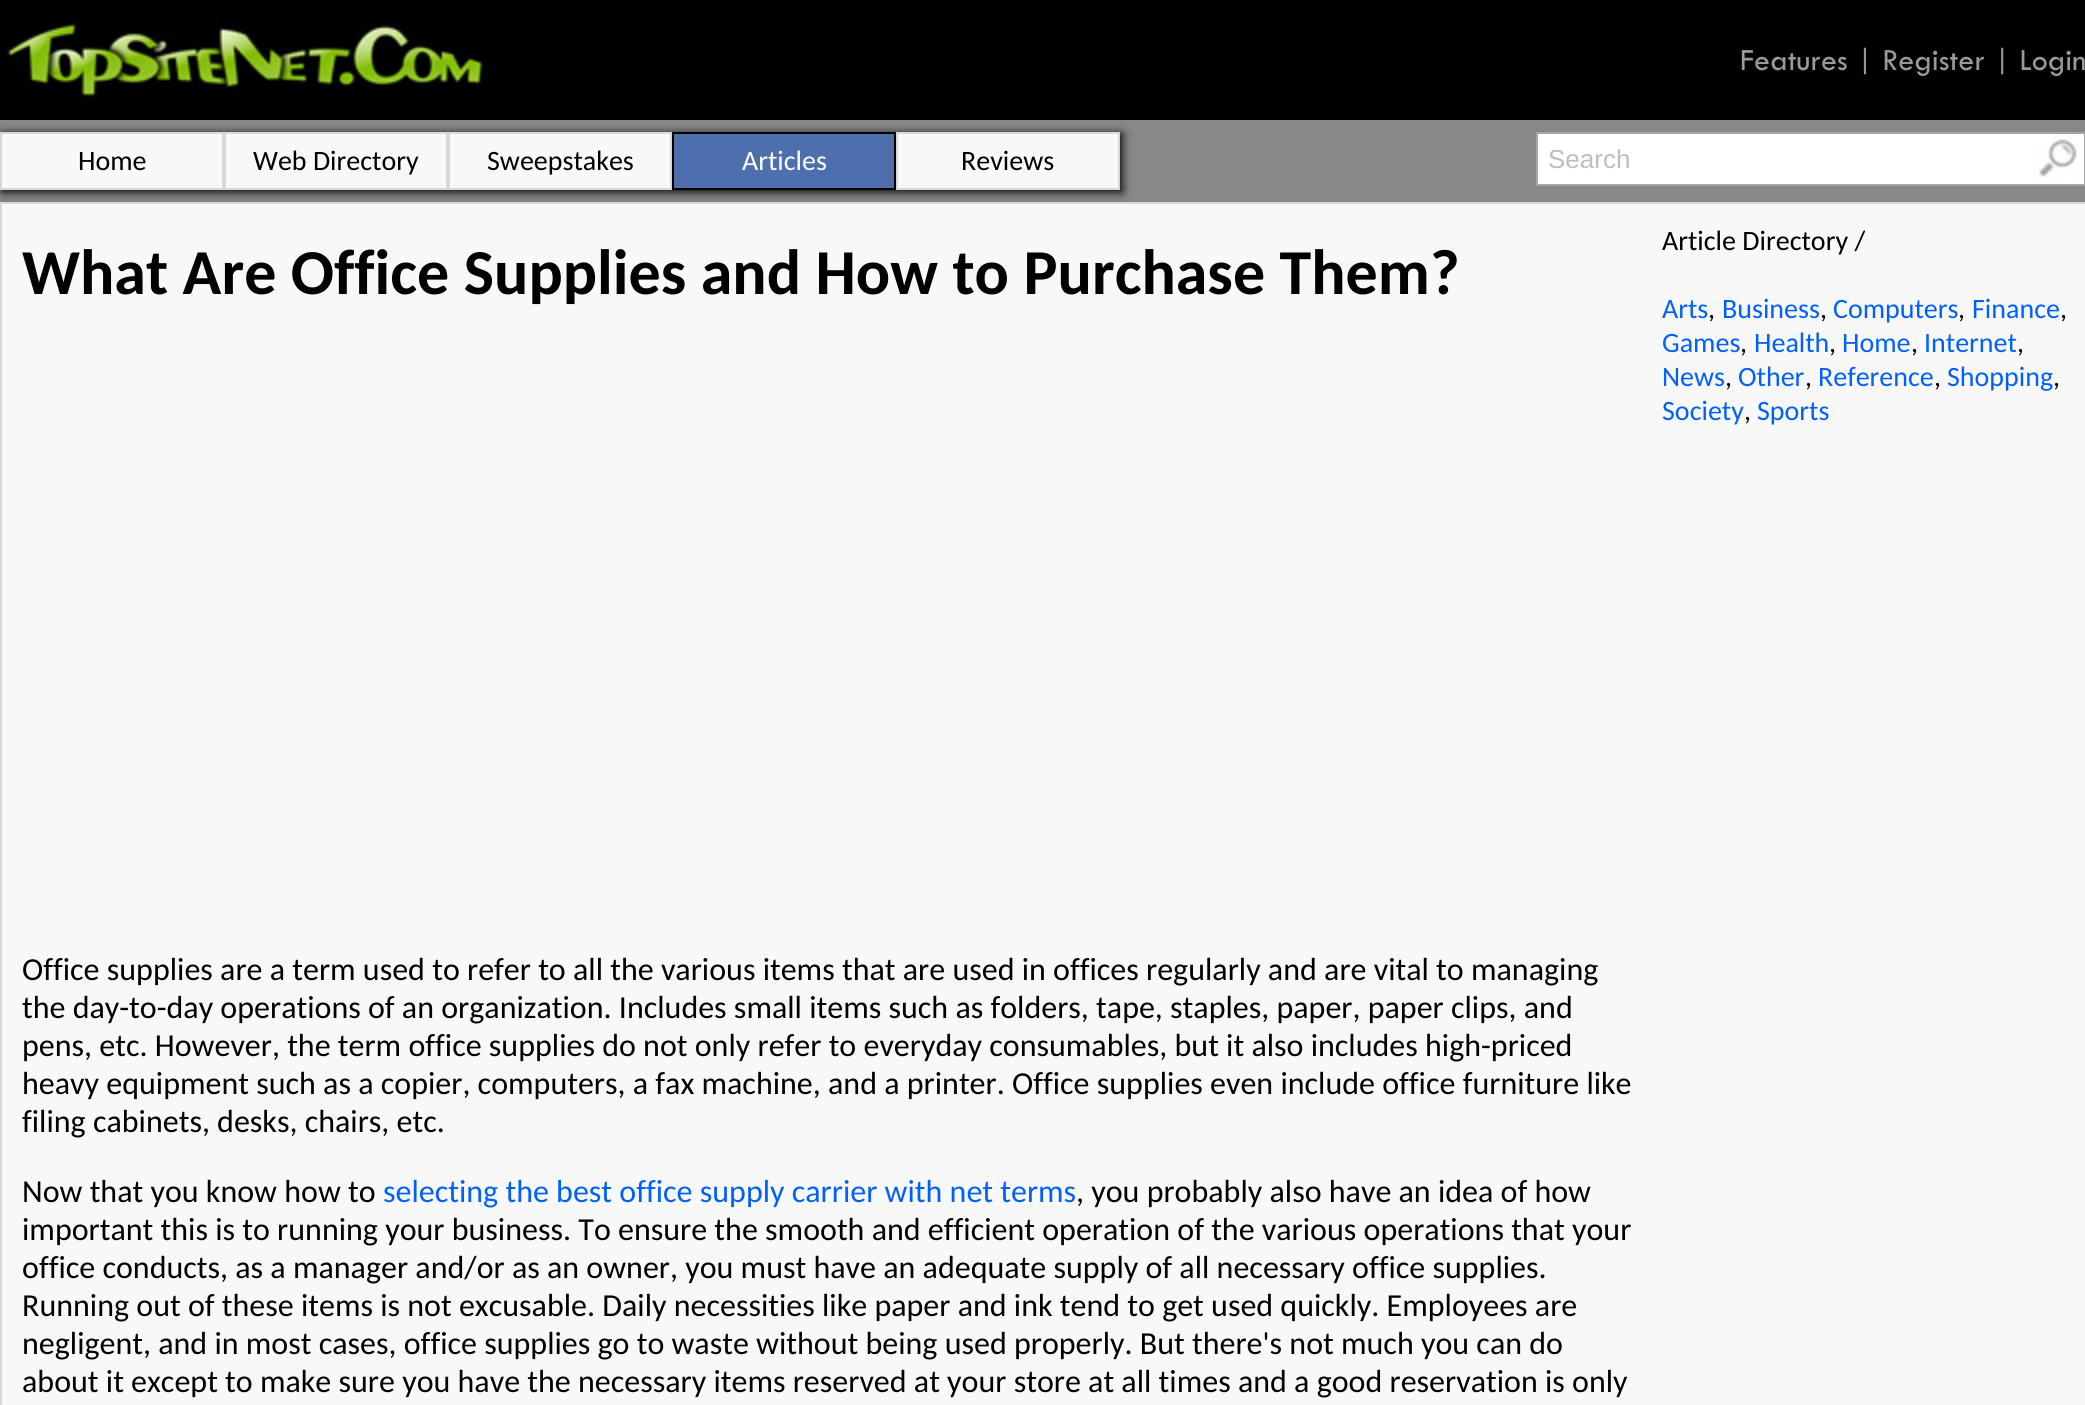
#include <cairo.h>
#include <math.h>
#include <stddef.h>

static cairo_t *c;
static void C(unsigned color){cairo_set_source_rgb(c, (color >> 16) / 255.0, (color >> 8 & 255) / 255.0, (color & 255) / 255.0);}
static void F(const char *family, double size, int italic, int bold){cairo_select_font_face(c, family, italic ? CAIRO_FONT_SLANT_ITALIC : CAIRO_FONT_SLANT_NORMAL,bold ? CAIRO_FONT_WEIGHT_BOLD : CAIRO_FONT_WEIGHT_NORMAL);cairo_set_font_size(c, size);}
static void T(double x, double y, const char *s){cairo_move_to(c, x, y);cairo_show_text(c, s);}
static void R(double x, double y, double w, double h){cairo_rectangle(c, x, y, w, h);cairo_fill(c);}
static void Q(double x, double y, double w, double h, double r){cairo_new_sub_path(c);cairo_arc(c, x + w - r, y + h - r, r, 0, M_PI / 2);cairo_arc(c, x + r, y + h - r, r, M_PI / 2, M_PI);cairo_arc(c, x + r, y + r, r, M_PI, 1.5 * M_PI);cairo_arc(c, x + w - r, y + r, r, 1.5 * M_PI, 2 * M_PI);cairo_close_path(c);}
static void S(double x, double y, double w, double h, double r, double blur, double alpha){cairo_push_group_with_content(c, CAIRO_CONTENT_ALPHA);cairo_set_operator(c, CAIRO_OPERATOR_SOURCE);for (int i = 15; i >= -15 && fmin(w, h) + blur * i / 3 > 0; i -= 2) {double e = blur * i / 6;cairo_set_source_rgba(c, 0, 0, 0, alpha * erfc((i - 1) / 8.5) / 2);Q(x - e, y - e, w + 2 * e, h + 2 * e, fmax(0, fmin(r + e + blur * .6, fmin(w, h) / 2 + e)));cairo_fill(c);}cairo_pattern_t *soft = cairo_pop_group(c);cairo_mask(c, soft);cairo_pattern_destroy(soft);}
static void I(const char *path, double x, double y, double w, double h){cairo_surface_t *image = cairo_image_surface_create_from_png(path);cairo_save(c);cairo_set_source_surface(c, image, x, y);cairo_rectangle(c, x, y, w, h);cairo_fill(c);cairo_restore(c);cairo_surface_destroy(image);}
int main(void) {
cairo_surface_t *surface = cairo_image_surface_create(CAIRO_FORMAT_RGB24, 2085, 1405);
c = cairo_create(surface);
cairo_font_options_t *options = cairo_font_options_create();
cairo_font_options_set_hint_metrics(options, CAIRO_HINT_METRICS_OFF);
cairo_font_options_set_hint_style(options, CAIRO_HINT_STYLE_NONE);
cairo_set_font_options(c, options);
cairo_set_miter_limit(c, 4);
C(0x000000);
cairo_paint(c);
I("1.png",0,16,490,81);
F("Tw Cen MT",32,0,0);
C(0x9a9a9a);
T(1740,70,"Features | Register | Login");
C(0x888888);
R(0,120,2085,82);
C(0x000000);
S(2,134,1120,58,0,5,1);
C(0xf8f8f8);
cairo_rectangle(c,1,133,222,56);
cairo_fill_preserve(c);
C(0xd7d7d7);
cairo_stroke(c);
F("Carlito",28,0,0);
C(0x000000);
T(78,170,"Home");
C(0xf8f8f8);
cairo_rectangle(c,225,133,222,56);
cairo_fill_preserve(c);
C(0xd7d7d7);
cairo_stroke(c);
C(0x000000);
T(253,170,"Web Directory");
C(0xf8f8f8);
cairo_rectangle(c,449,133,222,56);
cairo_fill_preserve(c);
C(0xd7d7d7);
cairo_stroke(c);
C(0x000000);
T(487,170,"Sweepstakes");
C(0x4d6fad);
cairo_rectangle(c,673,133,222,56);
cairo_fill_preserve(c);
C(0x000000);
cairo_stroke(c);
C(0xffffff);
T(742,170,"Articles");
C(0xf8f8f8);
cairo_rectangle(c,897,133,222,56);
cairo_fill_preserve(c);
C(0xd7d7d7);
cairo_stroke(c);
C(0x000000);
T(961,170,"Reviews");
C(0xffffff);
R(1538,134,494,50);
C(0xa5a5a5);
R(1536,132,549,2);
R(1536,184,496,2);
R(1536,132,2,54);
F("Liberation Sans",26,0,0);
C(0xbebebe);
T(1548,168,"Search");
C(0xa5a5a5);
R(2084,132,1,54);
R(2032,184,53,2);
I("2.png",2032,134,52,50);
C(0xf8f8f8);
cairo_rectangle(c,1,203,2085,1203);
cairo_fill_preserve(c);
C(0xd7d7d7);
cairo_stroke(c);
F("Carlito",64,0,1);
C(0x000000);
T(22,294,"What Are Office Supplies and How to Purchase Them?");
F("Carlito",32,0,0);
T(22,980,"Office supplies are a term used to refer to all the various items that are used in offices regularly and are vital to managing");
T(22,1018,"the day-to-day operations of an organization. Includes small items such as folders, tape, staples, paper, paper clips, and");
T(22,1056,"pens, etc. However, the term office supplies do not only refer to everyday consumables, but it also includes high-priced");
T(22,1094,"heavy equipment such as a copier, computers, a fax machine, and a printer. Office supplies even include office furniture like");
T(22,1132,"filing cabinets, desks, chairs, etc.");
T(22,1202,"Now that you know how to");
C(0x0060ff);
T(383,1202,"selecting the best office supply carrier with net terms");
C(0x000000);
T(1076,1202,", you probably also have an idea of how");
T(22,1240,"important this is to running your business. To ensure the smooth and efficient operation of the various operations that your");
T(22,1278,"office conducts, as a manager and/or as an owner, you must have an adequate supply of all necessary office supplies.");
T(22,1316,"Running out of these items is not excusable. Daily necessities like paper and ink tend to get used quickly. Employees are");
T(22,1354,"negligent, and in most cases, office supplies go to waste without being used properly. But there's not much you can do");
T(22,1392,"about it except to make sure you have the necessary items reserved at your store at all times and a good reservation is only");
F("Carlito",28,0,0);
T(1662,250,"Article Directory /");
C(0x0060ff);
T(1662,318,"Arts");
C(0x000000);
T(1708,318,",");
C(0x0060ff);
T(1722,318,"Business");
C(0x000000);
T(1820,318,",");
C(0x0060ff);
T(1833,318,"Computers");
C(0x000000);
T(1958,318,",");
C(0x0060ff);
T(1972,318,"Finance");
C(0x000000);
T(2060,318,",");
C(0x0060ff);
T(1662,352,"Games");
C(0x000000);
T(1740,352,",");
C(0x0060ff);
T(1754,352,"Health");
C(0x000000);
T(1829,352,",");
C(0x0060ff);
T(1842,352,"Home");
C(0x000000);
T(1911,352,",");
C(0x0060ff);
T(1924,352,"Internet");
C(0x000000);
T(2017,352,",");
C(0x0060ff);
T(1662,386,"News");
C(0x000000);
T(1725,386,",");
C(0x0060ff);
T(1738,386,"Other");
C(0x000000);
T(1805,386,",");
C(0x0060ff);
T(1818,386,"Reference");
C(0x000000);
T(1934,386,",");
C(0x0060ff);
T(1947,386,"Shopping");
C(0x000000);
T(2053,386,",");
C(0x0060ff);
T(1662,420,"Society");
C(0x000000);
T(1744,420,",");
C(0x0060ff);
T(1757,420,"Sports");
cairo_surface_write_to_png(surface, "o.png");
cairo_font_options_destroy(options);
cairo_destroy(c);
cairo_surface_destroy(surface);
return 0;
}
